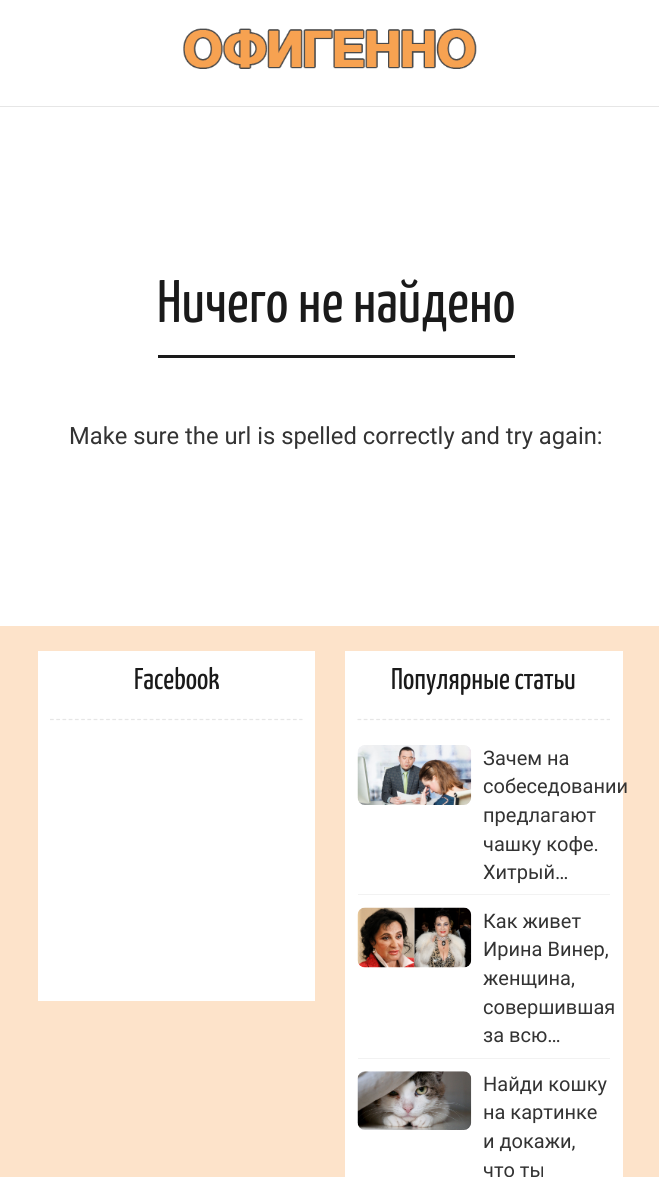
#include <cairo.h>
#include <math.h>
#include <stddef.h>

static cairo_t *c;
static void C(unsigned color){cairo_set_source_rgb(c, (color >> 16) / 255.0, (color >> 8 & 255) / 255.0, (color & 255) / 255.0);}
static void F(const char *family, double size, int italic, int bold){cairo_select_font_face(c, family, italic ? CAIRO_FONT_SLANT_ITALIC : CAIRO_FONT_SLANT_NORMAL,bold ? CAIRO_FONT_WEIGHT_BOLD : CAIRO_FONT_WEIGHT_NORMAL);cairo_set_font_size(c, size);}
static void T(double x, double y, const char *s){cairo_move_to(c, x, y);cairo_show_text(c, s);}
static void R(double x, double y, double w, double h){cairo_rectangle(c, x, y, w, h);cairo_fill(c);}
static void I(const char *path, double x, double y, double w, double h){cairo_surface_t *image = cairo_image_surface_create_from_png(path);cairo_save(c);cairo_set_source_surface(c, image, x, y);cairo_rectangle(c, x, y, w, h);cairo_fill(c);cairo_restore(c);cairo_surface_destroy(image);}
int main(void) {
cairo_surface_t *surface = cairo_image_surface_create(CAIRO_FORMAT_RGB24, 659, 1177);
c = cairo_create(surface);
cairo_font_options_t *options = cairo_font_options_create();
cairo_font_options_set_hint_metrics(options, CAIRO_HINT_METRICS_OFF);
cairo_font_options_set_hint_style(options, CAIRO_HINT_STYLE_NONE);
cairo_set_font_options(c, options);
cairo_set_miter_limit(c, 4);
C(0xffffff);
cairo_paint(c);
I("1.png",183,28,294,41);
C(0xe6e6e6);
R(0,106,659,1);
C(0x1a1a1a);
R(158,355,357,3);
F("Yanone Kaffeesatz ExtraLight",60,0,0);
T(157,322,"Ничего не найдено");
F("Roboto",23.75,0,0);
C(0x333333);
T(69,444,"Make sure the url is spelled correctly and try again:");
C(0xfde3ca);
R(0,626,659,551);
C(0xffffff);
R(38,651,277,350);
cairo_new_path(c);
cairo_move_to(c,50,719.5);
cairo_line_to(c,302.5,719.5);
C(0xe6e6e6);
cairo_set_line_width(c,1.2);
cairo_set_dash(c,(double[]){3.75,2.48},2,0);
cairo_stroke(c);
F("Yanone Kaffeesatz ExtraLight",30,0,0);
C(0x1a1a1a);
T(134,689,"Facebook");
C(0xffffff);
R(345,651,278,526);
cairo_new_path(c);
cairo_move_to(c,357.5,719.5);
cairo_line_to(c,610,719.5);
C(0xe6e6e6);
cairo_stroke(c);
C(0x1a1a1a);
T(391,689,"Популярные статьи");
C(0xf2f2f2);
R(358,894,252,1);
I("2.png",357,745,115,60);
F("Roboto",20,0,0);
C(0x333333);
T(483,765,"Зачем на");
T(483,793,"собеседовании");
T(483,822,"предлагают");
T(483,851,"чашку кофе.");
T(483,879,"Хитрый…");
C(0xf2f2f2);
R(358,1058,252,1);
I("3.png",357,907,115,61);
C(0x333333);
T(483,928,"Как живет");
T(483,956,"Ирина Винер,");
T(483,985,"женщина,");
T(483,1014,"совершившая");
T(483,1042,"за всю…");
I("4.png",357,1071,115,59);
T(483,1091,"Найди кошку");
T(483,1119,"на картинке");
T(483,1148,"и докажи,");
T(483,1177,"что ты");
cairo_surface_write_to_png(surface, "o.png");
cairo_font_options_destroy(options);
cairo_destroy(c);
cairo_surface_destroy(surface);
return 0;
}
